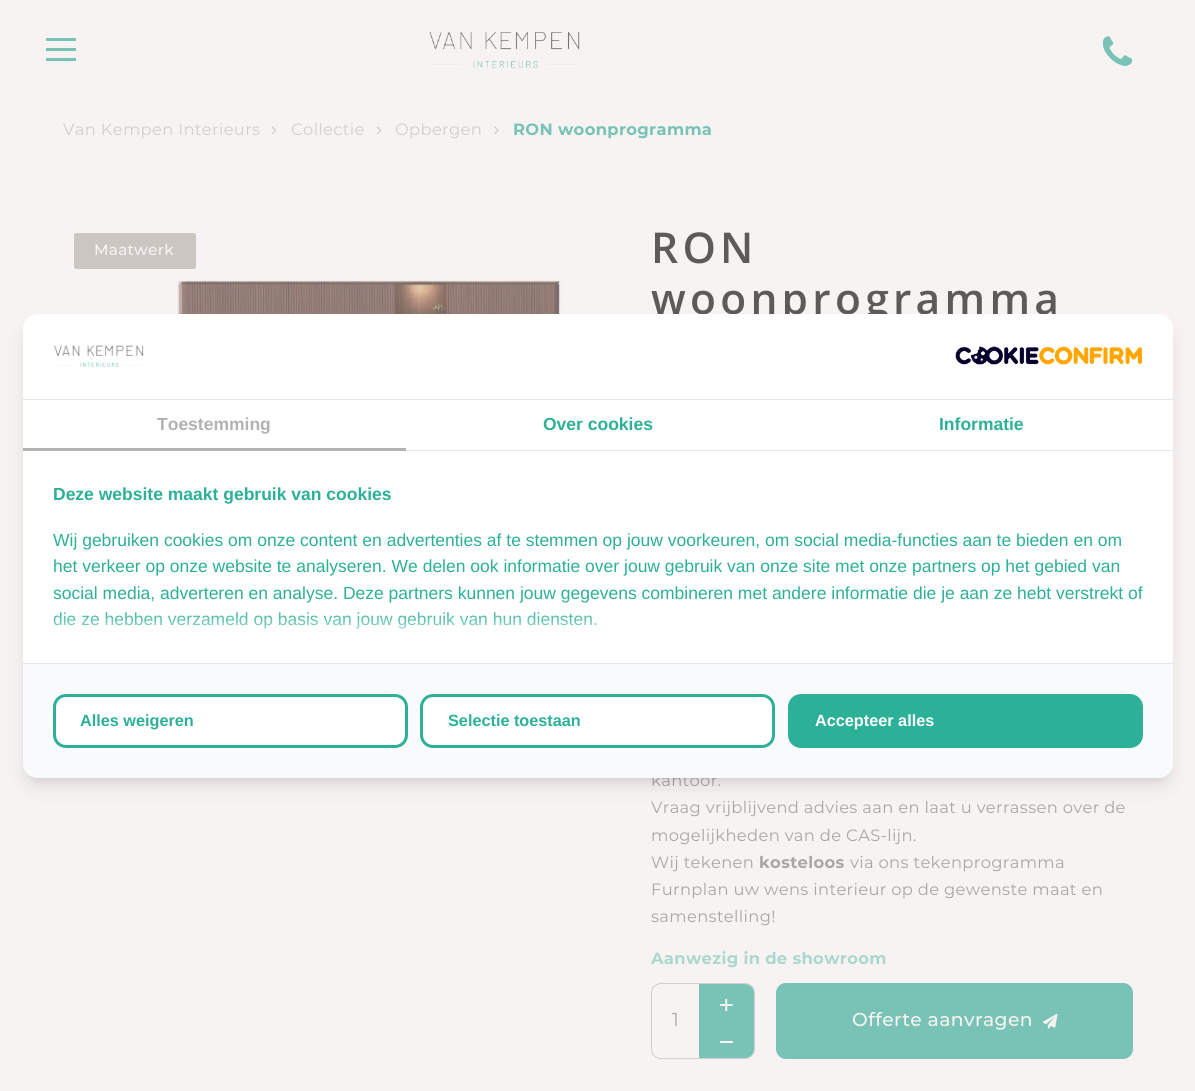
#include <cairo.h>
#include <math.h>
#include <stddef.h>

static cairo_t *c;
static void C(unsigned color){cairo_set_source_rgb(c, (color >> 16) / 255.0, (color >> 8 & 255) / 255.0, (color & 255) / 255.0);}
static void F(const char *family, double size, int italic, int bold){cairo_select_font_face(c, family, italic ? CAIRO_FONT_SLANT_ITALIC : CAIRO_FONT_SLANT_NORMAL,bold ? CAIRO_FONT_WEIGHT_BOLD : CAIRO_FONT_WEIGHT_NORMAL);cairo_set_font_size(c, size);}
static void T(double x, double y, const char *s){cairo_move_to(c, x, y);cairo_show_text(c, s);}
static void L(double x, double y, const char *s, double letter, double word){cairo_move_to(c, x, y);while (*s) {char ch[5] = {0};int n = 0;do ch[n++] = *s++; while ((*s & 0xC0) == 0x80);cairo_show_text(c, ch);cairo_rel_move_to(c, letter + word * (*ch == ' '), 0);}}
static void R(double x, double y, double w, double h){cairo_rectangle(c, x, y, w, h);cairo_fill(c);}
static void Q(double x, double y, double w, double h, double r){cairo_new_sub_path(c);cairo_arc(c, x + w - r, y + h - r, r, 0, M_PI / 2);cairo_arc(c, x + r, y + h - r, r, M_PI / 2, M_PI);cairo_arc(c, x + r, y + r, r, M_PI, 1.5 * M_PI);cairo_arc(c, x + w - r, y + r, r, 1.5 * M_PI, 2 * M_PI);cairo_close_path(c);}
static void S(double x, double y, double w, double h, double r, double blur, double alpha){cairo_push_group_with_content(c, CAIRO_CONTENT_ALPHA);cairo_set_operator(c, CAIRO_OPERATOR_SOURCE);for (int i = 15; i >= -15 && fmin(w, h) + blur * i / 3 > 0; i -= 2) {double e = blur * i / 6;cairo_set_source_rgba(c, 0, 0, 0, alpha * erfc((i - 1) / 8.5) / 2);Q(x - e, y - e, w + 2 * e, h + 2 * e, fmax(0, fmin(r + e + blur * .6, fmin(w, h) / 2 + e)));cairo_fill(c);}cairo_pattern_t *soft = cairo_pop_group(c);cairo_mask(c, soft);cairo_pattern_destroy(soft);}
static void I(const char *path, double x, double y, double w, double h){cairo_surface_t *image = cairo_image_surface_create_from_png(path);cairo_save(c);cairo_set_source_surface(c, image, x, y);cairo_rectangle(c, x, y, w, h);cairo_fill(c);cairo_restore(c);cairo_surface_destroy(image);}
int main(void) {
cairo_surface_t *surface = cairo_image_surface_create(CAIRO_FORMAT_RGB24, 1195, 1091);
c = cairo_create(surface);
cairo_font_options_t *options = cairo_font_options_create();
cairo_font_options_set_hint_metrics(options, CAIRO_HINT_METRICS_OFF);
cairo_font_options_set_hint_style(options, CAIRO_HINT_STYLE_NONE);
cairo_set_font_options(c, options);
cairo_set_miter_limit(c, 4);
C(0xf7f3f3);
cairo_paint(c);
C(0x78c3b5);
R(46,38,30,3);
R(46,48,30,3);
R(46,58,30,3);
I("1.png",429,32,151,36);
I("2.png",1103,36,30,30);
F("Montserrat",16.35,0,0);
C(0xd1cece);
L(63,135,"Van Kempen Interieurs",.33,0);
I("3.png",271,126,6,9);
L(291,135,"Collectie",.33,0);
I("3.png",376,126,6,9);
L(395,135,"Opbergen",.33,0);
I("4.png",494,126,5,9);
F("Montserrat",16.35,0,1);
C(0x78c3b5);
L(513,135,"RON woonprogramma",.33,0);
C(0xcbc6c2);
Q(74,233,122,36,2.5);
cairo_fill(c);
F("Montserrat Medium",15.25,0,0);
C(0xf7f3f3);
L(94,255,"Maatwerk",.25,0);
I("5.png",69,280,526,34);
F("Open Sans SemiBold",42.5,0,0);
C(0x5e5a5a);
L(651,263,"RON",4.25,0);
L(651,314,"woonprogramma",4.25,0);
F("Montserrat",16.35,0,0);
C(0xaaa6a6);
L(651,786,"kantoor.",.33,0);
L(651,813,"Vraag vrijblijvend advies aan en laat u verrassen over de",.33,0);
L(651,841,"mogelijkheden van de CAS-lijn.",.33,0);
L(651,868,"Wij tekenen",.33,0);
F("Montserrat",16.35,0,1);
L(759,868,"kosteloos",.33,0);
F("Montserrat",16.35,0,0);
L(850,868,"via ons tekenprogramma",.33,0);
L(651,895,"Furnplan uw wens interieur op de gewenste maat en",.33,0);
L(651,922,"samenstelling!",.33,0);
F("Montserrat",16.35,0,1);
C(0xabd7ce);
L(651,964,"Aanwezig in de showroom",.33,0);
Q(651.5,983.5,103,75,9.5);
C(0xd1cece);
cairo_set_line_width(c,1);
cairo_stroke(c);
F("Montserrat",18.75,0,0);
C(0xaaa6a6);
L(672,1026,"1",.4,0);
C(0x78c3b5);
cairo_new_path(c);
cairo_move_to(c,699,984);
cairo_line_to(c,745,984);
cairo_curve_to(c,750,984,754,988,754,993);
cairo_line_to(c,754,1020);
cairo_line_to(c,699,1020);
cairo_close_path(c);
cairo_fill(c);
I("6.png",720,999,13,12);
cairo_new_path(c);
cairo_move_to(c,699,1020);
cairo_line_to(c,754,1020);
cairo_line_to(c,754,1049);
cairo_curve_to(c,754,1054,750,1058,745,1058);
cairo_line_to(c,699,1058);
cairo_close_path(c);
cairo_fill(c);
C(0xf7f3f3);
R(720,1041,13,2);
C(0x78c3b5);
Q(776.5,983.5,356,75,9.5);
cairo_fill_preserve(c);
cairo_stroke(c);
F("Montserrat Medium",18.75,0,0);
C(0xf7f3f3);
L(852,1026,"Offerte aanvragen",.4,0);
I("7.png",1043,1014,15,15);
C(0x000000);
S(28,324,1140,454,10,4,.1);
S(26,330,1143,456,11,9.5,.1);
C(0xffffff);
Q(23,314,1150,464,15);
cairo_fill(c);
C(0xe5e7eb);
R(23,399,1150,1);
I("8.png",54,345,90,22);
I("9.png",955,346,187,19);
R(406,450,767,1);
C(0xb3b1b1);
R(23,448,383,3);
F("Liberation Sans",17.5,0,1);
T(157,430,"Toestemming");
C(0x2cb097);
T(543,430,"Over cookies");
T(939,430,"Informatie");
T(53,500,"Deze website maakt gebruik van cookies");
F("Liberation Sans",17.5,0,0);
T(53,546,"Wij gebruiken cookies om onze content en advertenties af te stemmen op jouw voorkeuren, om social media-functies aan te bieden en om");
T(53,572,"het verkeer op onze website te analyseren. We delen ook informatie over jouw gebruik van onze site met onze partners op het gebied van");
T(53,599,"social media, adverteren en analyse. Deze partners kunnen jouw gegevens combineren met andere informatie die je aan ze hebt verstrekt of");
T(53,625,"die ze hebben verzameld op basis van jouw gebruik van hun diensten.");
cairo_save(c);
Q(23,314,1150,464,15);
cairo_clip(c);
C(0xffffff);
S(13,628,1170,135,0,12.5,1);
cairo_restore(c);
C(0xf9fafb);
cairo_new_path(c);
cairo_move_to(c,23,663);
cairo_line_to(c,1173,663);
cairo_line_to(c,1173,763);
cairo_curve_to(c,1173,771.5,1166.5,778,1158,778);
cairo_line_to(c,38,778);
cairo_curve_to(c,29.5,778,23,771.5,23,763);
cairo_close_path(c);
cairo_fill(c);
C(0xe5e7eb);
R(23,663,1150,1);
C(0xffffff);
Q(54.5,695.5,352,51,11.5);
cairo_fill_preserve(c);
C(0x2cb097);
cairo_set_line_width(c,3);
cairo_stroke(c);
F("Liberation Sans",16.25,0,1);
T(80,726,"Alles weigeren");
C(0xffffff);
Q(421.5,695.5,352,51,11.5);
cairo_fill_preserve(c);
C(0x2cb097);
cairo_stroke(c);
T(448,726,"Selectie toestaan");
Q(789.5,695.5,352,51,11.5);
cairo_fill_preserve(c);
cairo_stroke(c);
C(0xffffff);
T(815,726,"Accepteer alles");
cairo_surface_write_to_png(surface, "o.png");
cairo_font_options_destroy(options);
cairo_destroy(c);
cairo_surface_destroy(surface);
return 0;
}
